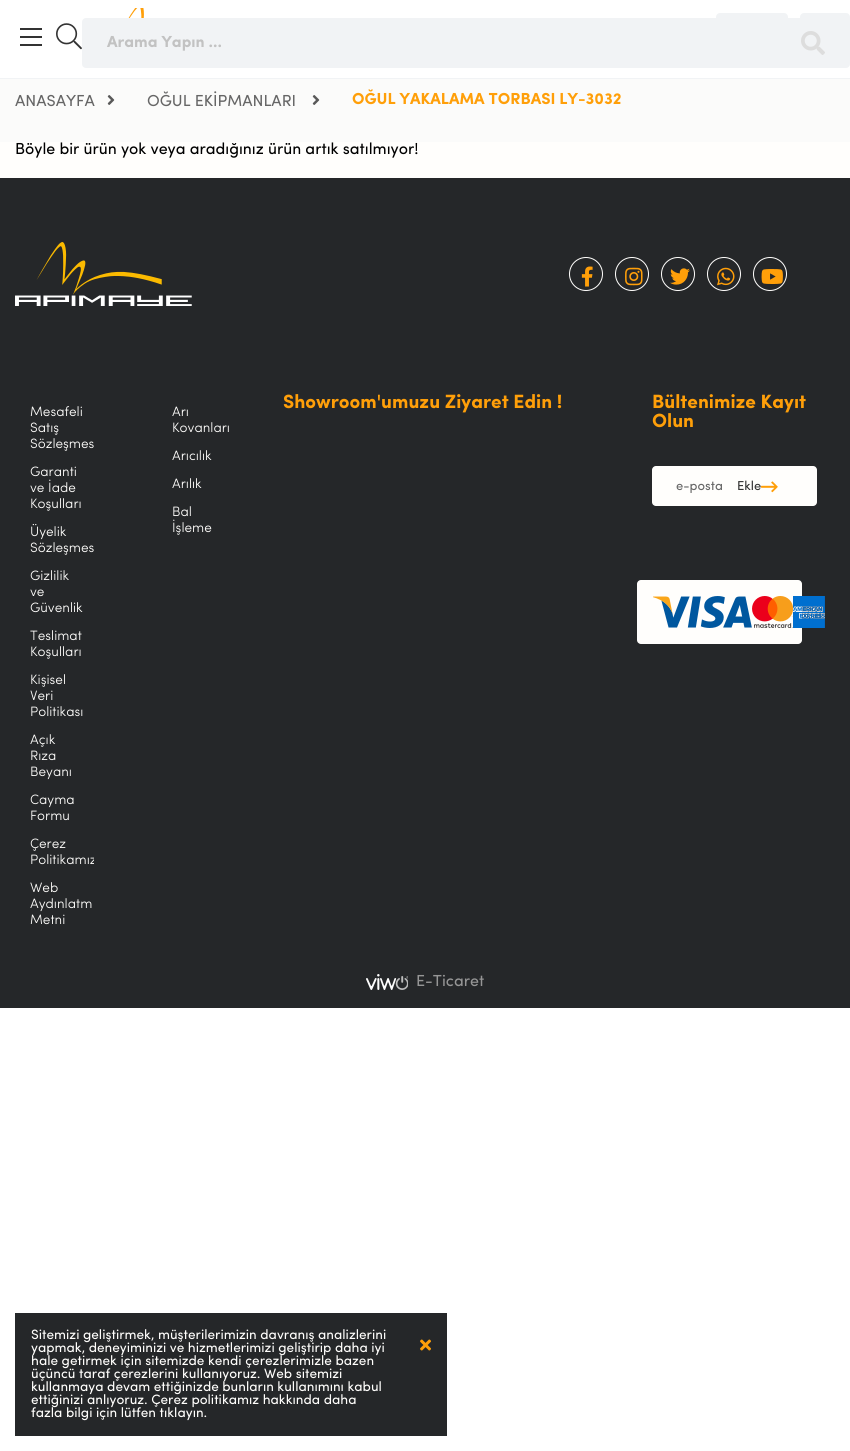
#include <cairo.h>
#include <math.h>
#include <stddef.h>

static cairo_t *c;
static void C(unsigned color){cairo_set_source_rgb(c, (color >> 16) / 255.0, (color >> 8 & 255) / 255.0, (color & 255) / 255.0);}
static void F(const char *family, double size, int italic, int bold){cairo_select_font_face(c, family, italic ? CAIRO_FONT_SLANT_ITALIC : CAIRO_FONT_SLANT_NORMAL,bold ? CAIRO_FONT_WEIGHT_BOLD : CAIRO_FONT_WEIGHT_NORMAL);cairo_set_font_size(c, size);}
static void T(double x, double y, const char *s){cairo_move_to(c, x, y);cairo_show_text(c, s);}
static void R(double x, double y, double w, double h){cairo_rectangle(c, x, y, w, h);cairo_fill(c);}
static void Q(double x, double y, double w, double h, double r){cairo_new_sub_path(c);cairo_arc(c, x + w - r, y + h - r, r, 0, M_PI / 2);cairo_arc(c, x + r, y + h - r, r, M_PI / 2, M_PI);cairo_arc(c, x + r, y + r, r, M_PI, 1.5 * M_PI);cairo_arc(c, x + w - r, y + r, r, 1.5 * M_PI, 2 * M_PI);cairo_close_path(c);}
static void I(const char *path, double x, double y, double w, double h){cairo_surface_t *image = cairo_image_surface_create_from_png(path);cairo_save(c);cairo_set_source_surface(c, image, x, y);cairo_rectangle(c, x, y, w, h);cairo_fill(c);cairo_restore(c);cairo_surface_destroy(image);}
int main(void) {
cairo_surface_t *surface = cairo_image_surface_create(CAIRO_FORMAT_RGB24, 850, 1451);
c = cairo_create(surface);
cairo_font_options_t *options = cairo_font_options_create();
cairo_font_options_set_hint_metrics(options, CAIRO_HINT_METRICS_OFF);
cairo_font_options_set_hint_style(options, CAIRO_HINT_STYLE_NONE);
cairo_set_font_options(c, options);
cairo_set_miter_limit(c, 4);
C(0xffffff);
cairo_paint(c);
C(0xf1f3f5);
R(0,78,850,1);
C(0x333333);
R(20,28,22,2);
R(20,36,22,2);
R(20,44,22,2);
I("1.png",56,23,26,27);
I("2.png",128,8,16,10);
C(0xf1f3f5);
Q(716,13,72,50,4);
cairo_fill(c);
Q(800,13,50,50,4);
cairo_fill(c);
Q(82,18,768,50,4);
cairo_fill(c);
F("Sofia",16,0,1);
C(0xc2c2c2);
T(107,47,"Arama Yapın ...");
I("3.png",801,31,24,24);
C(0xfffefc);
R(0,142,850,36);
C(0xfbfbfa);
R(0,79,850,63);
F("Sofia",16,0,0);
C(0x666666);
T(15,106,"ANASAYFA");
I("4.png",107,95,8,10);
T(147,106,"OĞUL EKİPMANLARI");
I("4.png",312,95,8,10);
F("Sofia",16,0,1);
C(0xff9f09);
T(352,104,"OĞUL YAKALAMA TORBASI LY-3032");
F("Sofia",16,0,0);
C(0x000000);
T(15,154,"Böyle bir ürün yok veya aradığınız ürün artık satılmıyor!");
C(0x252729);
R(0,178,850,830);
I("5.png",15,242,177,64);
cairo_arc(c,586,274,16.5,0,2 * M_PI);
C(0xfffefc);
cairo_set_line_width(c,1);
cairo_stroke(c);
I("6.png",581,266,12,21);
cairo_arc(c,632,274,16.5,0,2 * M_PI);
cairo_stroke(c);
I("7.png",625,267,18,19);
cairo_arc(c,678,274,16.5,0,2 * M_PI);
cairo_stroke(c);
I("8.png",670,268,20,17);
cairo_arc(c,724,274,16.5,0,2 * M_PI);
cairo_stroke(c);
I("9.png",717,267,18,19);
cairo_arc(c,770,274,16.5,0,2 * M_PI);
cairo_stroke(c);
I("10.png",761,269,22,15);
F("Sofia Light",13.6,0,0);
T(30,416,"Mesafeli");
T(30,432,"Satış");
T(30,448,"Sözleşmes");
T(30,476,"Garanti");
T(30,492,"ve İade");
T(30,508,"Koşulları");
T(30,536,"Üyelik");
T(30,552,"Sözleşmes");
T(30,580,"Gizlilik");
T(30,596,"ve");
T(30,612,"Güvenlik");
T(30,640,"Teslimat");
T(30,656,"Koşulları");
T(30,684,"Kişisel");
T(30,700,"Veri");
T(30,716,"Politikası");
T(30,744,"Açık");
T(30,760,"Rıza");
T(30,776,"Beyanı");
T(30,804,"Cayma");
T(30,820,"Formu");
T(30,848,"Çerez");
cairo_save(c);
cairo_rectangle(c,0,394,94,544);
cairo_clip(c);
T(30,864,"Politikamız");
cairo_restore(c);
T(30,892,"Web");
T(30,908,"Aydınlatm");
T(30,924,"Metni");
T(172,416,"Arı");
T(172,432,"Kovanları");
T(172,460,"Arıcılık");
T(172,488,"Arılık");
T(172,516,"Bal");
T(172,532,"İşleme");
F("Sofia",19.25,0,1);
C(0xff9f09);
T(283,408,"Showroom'umuzu Ziyaret Edin !");
T(652,408,"Bültenimize Kayıt");
T(652,427,"Olun");
C(0xfffefc);
Q(652,466,165,40,4);
cairo_fill(c);
F("Sofia",13,0,0);
C(0x666666);
T(676,490,"e-posta");
C(0x333333);
T(737,490,"Ekle");
I("11.png",761,481,17,12);
C(0xfffefc);
Q(637,580,165,64,4);
cairo_fill(c);
I("12.png",653,596,99,32);
I("13.png",752,596,41,32);
I("14.png",793,596,32,32);
I("15.png",366,974,42,16);
F("Sofia",16,0,0);
C(0x969696);
T(416,986,"E-Ticaret");
C(0x252729);
R(15,1313,432,123);
F("Sofia",13.6,0,0);
C(0xfffefc);
T(31,1339,"Sitemizi geliştirmek, müşterilerimizin davranış analizlerini");
T(31,1352,"yapmak, deneyiminizi ve hizmetlerimizi geliştirip daha iyi");
T(31,1365,"hale getirmek için sitemizde kendi çerezlerimizle bazen");
T(31,1378,"üçüncü taraf çerezlerini kullanıyoruz. Web sitemizi");
T(31,1391,"kullanmaya devam ettiğinizde bunların kullanımını kabul");
T(31,1404,"ettiğinizi anlıyoruz. Çerez politikamız hakkında daha");
T(31,1417,"fazla bilgi için lütfen tıklayın.");
I("16.png",420,1339,11,12);
cairo_surface_write_to_png(surface, "o.png");
cairo_font_options_destroy(options);
cairo_destroy(c);
cairo_surface_destroy(surface);
return 0;
}
